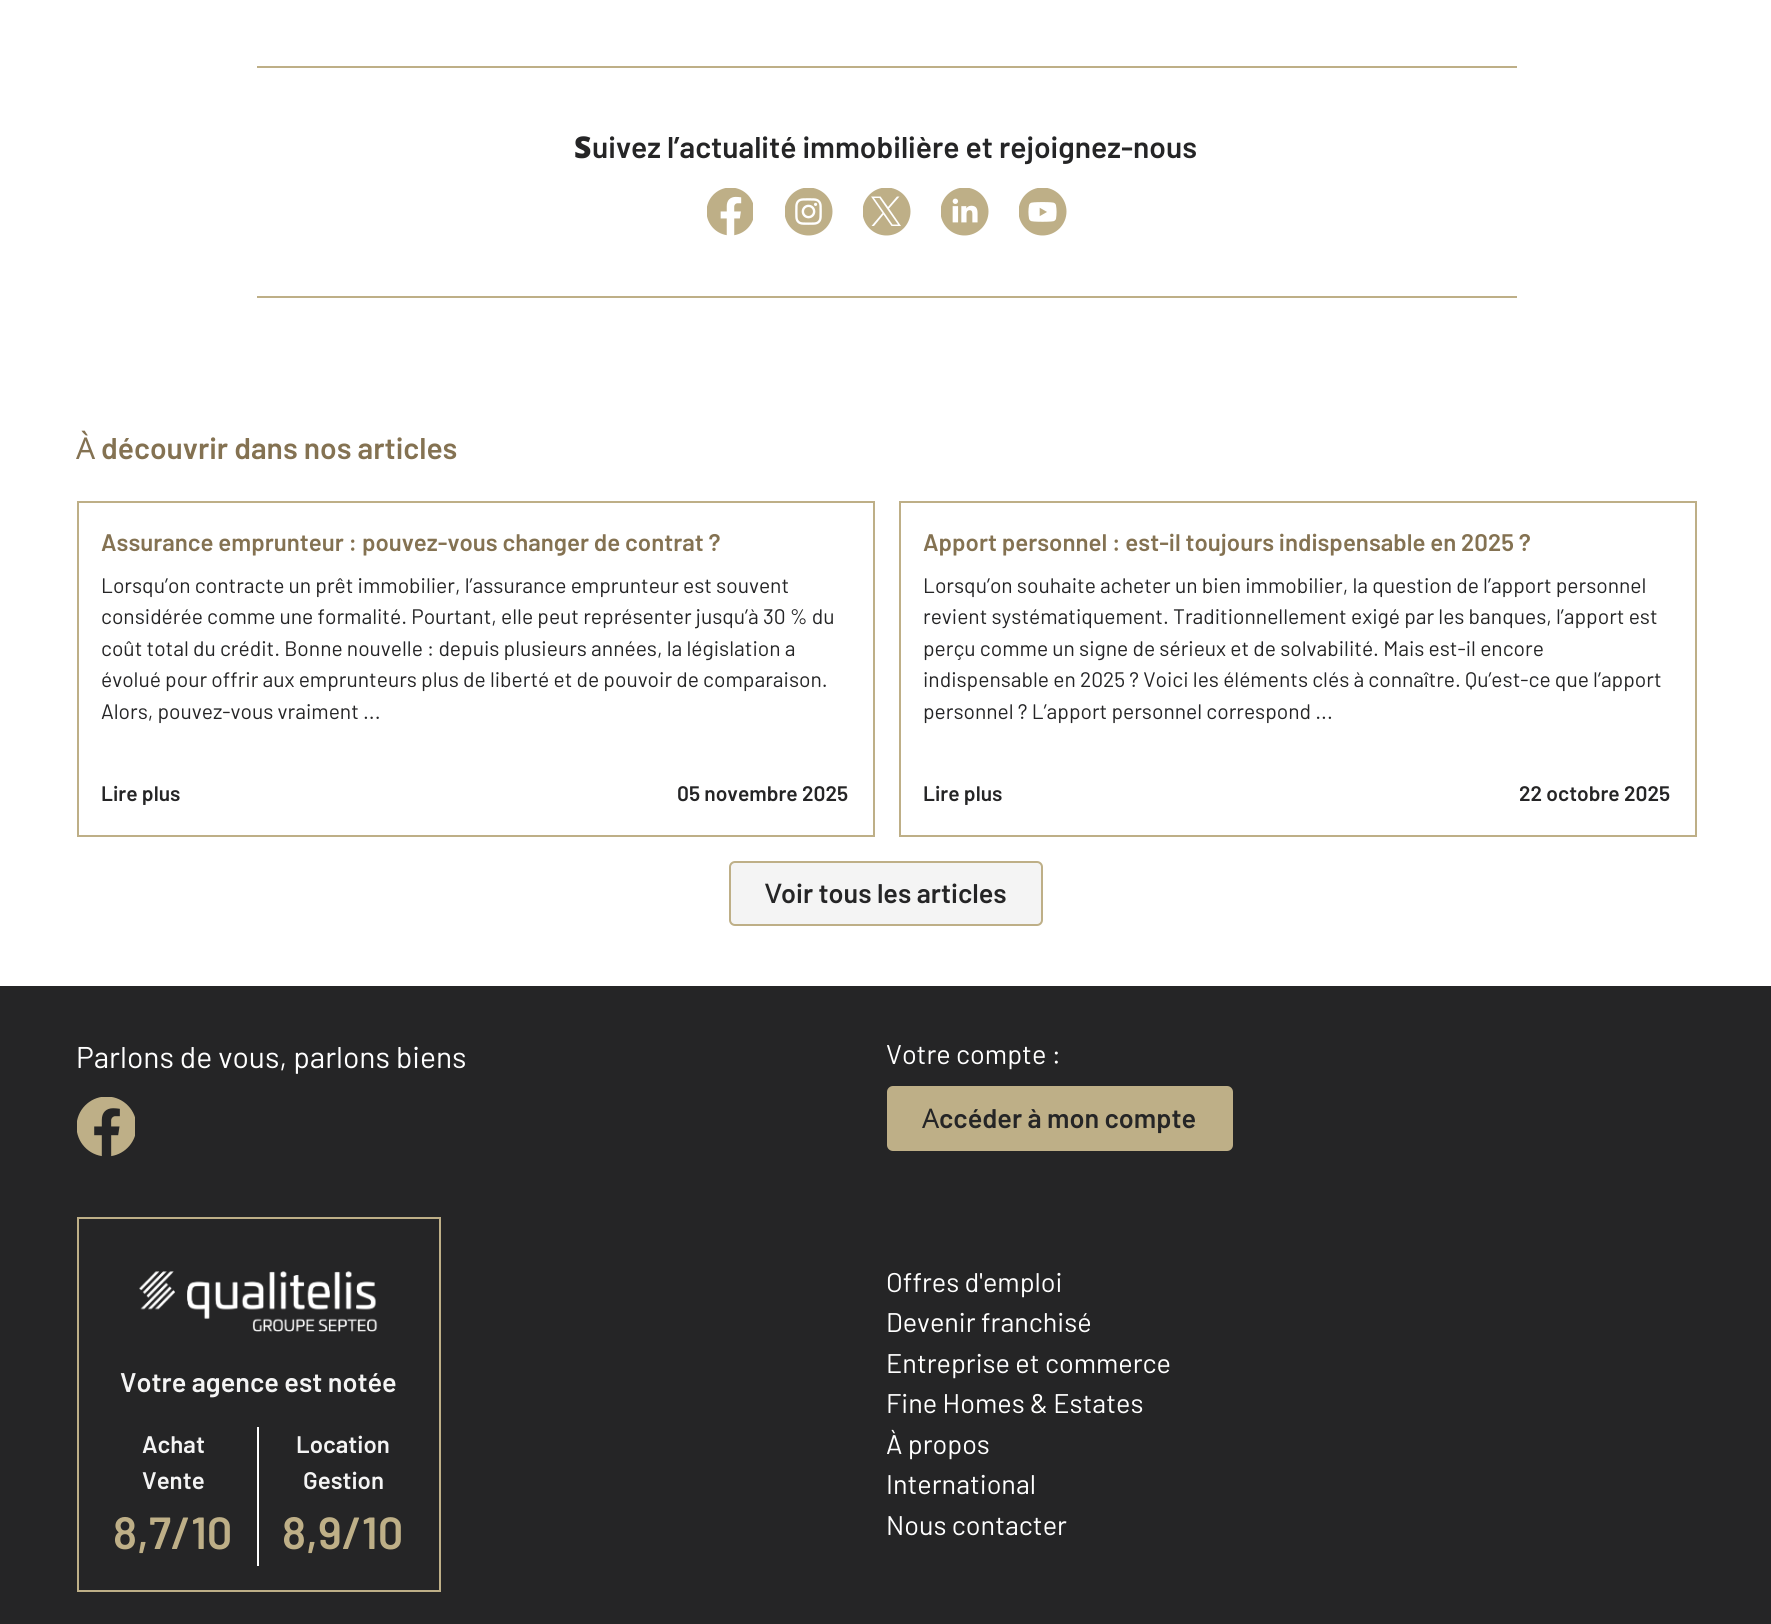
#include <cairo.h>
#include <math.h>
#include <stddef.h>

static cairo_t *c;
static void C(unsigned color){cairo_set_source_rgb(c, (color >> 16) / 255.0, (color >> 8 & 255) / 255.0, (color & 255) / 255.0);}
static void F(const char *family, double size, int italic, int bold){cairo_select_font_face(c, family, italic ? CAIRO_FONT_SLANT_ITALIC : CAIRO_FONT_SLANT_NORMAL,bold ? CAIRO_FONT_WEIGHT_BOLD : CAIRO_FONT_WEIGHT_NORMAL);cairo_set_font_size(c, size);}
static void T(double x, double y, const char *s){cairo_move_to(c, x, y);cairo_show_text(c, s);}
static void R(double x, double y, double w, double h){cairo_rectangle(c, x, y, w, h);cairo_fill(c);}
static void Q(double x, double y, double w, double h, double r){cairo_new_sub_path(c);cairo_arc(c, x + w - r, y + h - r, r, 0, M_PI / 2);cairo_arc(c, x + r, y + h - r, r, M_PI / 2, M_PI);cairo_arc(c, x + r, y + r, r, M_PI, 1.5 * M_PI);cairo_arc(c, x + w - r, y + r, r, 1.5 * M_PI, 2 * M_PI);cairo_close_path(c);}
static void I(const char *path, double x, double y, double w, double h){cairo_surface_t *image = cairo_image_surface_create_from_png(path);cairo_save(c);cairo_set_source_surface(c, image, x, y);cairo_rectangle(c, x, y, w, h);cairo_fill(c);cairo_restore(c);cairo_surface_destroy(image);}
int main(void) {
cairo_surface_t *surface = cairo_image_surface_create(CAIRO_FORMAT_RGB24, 1771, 1624);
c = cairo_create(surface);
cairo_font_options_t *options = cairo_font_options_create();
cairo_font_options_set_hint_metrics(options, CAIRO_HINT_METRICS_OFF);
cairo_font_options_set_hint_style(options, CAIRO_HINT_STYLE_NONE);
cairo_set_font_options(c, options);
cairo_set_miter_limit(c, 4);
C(0xffffff);
cairo_paint(c);
C(0xbeaf87);
R(257,66,1260,2);
R(257,296,1260,2);
F("Noto Sans Black",30,0,0);
C(0x252526);
T(574,158,"S");
F("Barlow SemiBold",30,0,0);
T(592,158,"uivez l’actualité immobilière et rejoignez-nous");
I("1.png",707,188,46,48);
I("2.png",785,188,48,48);
cairo_save(c);
cairo_rectangle(c,863,188,48,48);
cairo_clip(c);
C(0xbeaf87);
cairo_arc(c,886.5,211.5,24,0,2 * M_PI);
cairo_fill(c);
cairo_restore(c);
C(0xffffff);
cairo_new_path(c);
cairo_move_to(c,871,196.5);
cairo_line_to(c,882.5,213);
cairo_line_to(c,871.5,226);
cairo_line_to(c,874,226);
cairo_line_to(c,883.5,214.5);
cairo_line_to(c,891.5,226);
cairo_line_to(c,901,226);
cairo_line_to(c,889,208.5);
cairo_line_to(c,899.5,196.5);
cairo_line_to(c,897,196.5);
cairo_line_to(c,888,207);
cairo_line_to(c,880.5,196.5);
cairo_close_path(c);
cairo_move_to(c,874,198);
cairo_line_to(c,879.5,198);
cairo_line_to(c,898,224.5);
cairo_line_to(c,892.5,224.5);
cairo_close_path(c);
cairo_fill(c);
I("3.png",941,188,48,48);
I("4.png",1019,188,48,48);
F("Noto Sans",30,0,0);
C(0x847252);
T(76,459,"À");
F("Barlow SemiBold",30,0,0);
T(101,459,"découvrir dans nos articles");
cairo_rectangle(c,78,502,796,334);
C(0xbeaf87);
cairo_stroke(c);
F("Barlow SemiBold",24,0,0);
C(0x847252);
T(101,551,"Assurance emprunteur : pouvez-vous changer de contrat ?");
F("Barlow",21,0,0);
C(0x252526);
T(101,593,"Lorsqu’on contracte un prêt immobilier, l’assurance emprunteur est souvent");
T(101,624,"considérée comme une formalité. Pourtant, elle peut représenter jusqu’à 30 % du");
T(101,656,"coût total du crédit. Bonne nouvelle : depuis plusieurs années, la législation a");
T(101,687,"évolué pour offrir aux emprunteurs plus de liberté et de pouvoir de comparaison.");
T(101,719,"Alors, pouvez-vous vraiment ...");
F("Barlow SemiBold",21,0,0);
T(101,801,"Lire plus");
T(677,801,"05 novembre 2025");
cairo_rectangle(c,900,502,796,334);
C(0xbeaf87);
cairo_stroke(c);
F("Barlow SemiBold",24,0,0);
C(0x847252);
T(923,551,"Apport personnel : est-il toujours indispensable en 2025 ?");
F("Barlow",21,0,0);
C(0x252526);
T(923,593,"Lorsqu’on souhaite acheter un bien immobilier, la question de l’apport personnel");
T(923,624,"revient systématiquement. Traditionnellement exigé par les banques, l’apport est");
T(923,656,"perçu comme un signe de sérieux et de solvabilité. Mais est-il encore");
T(923,687,"indispensable en 2025 ? Voici les éléments clés à connaître. Qu’est-ce que l’apport");
T(923,719,"personnel ? L’apport personnel correspond ...");
F("Barlow SemiBold",21,0,0);
T(923,801,"Lire plus");
T(1519,801,"22 octobre 2025");
C(0xf4f4f4);
Q(730,862,312,63,5);
cairo_fill_preserve(c);
C(0xbeaf87);
cairo_stroke(c);
F("Noto Sans Medium",27,0,0);
C(0x252526);
T(765,903,"V");
F("Barlow SemiBold",27,0,0);
T(781,903,"oir tous les articles");
R(0,986,1771,638);
F("Barlow",30,0,0);
C(0xffffff);
T(76,1068,"Parlons de vous, parlons biens");
I("5.png",77,1097,58,60);
F("Barlow",27,0,0);
T(886,1064,"Votre compte :");
C(0xbeaf87);
Q(888,1087,344,63,5);
cairo_fill_preserve(c);
cairo_stroke(c);
F("Noto Sans",27,0,0);
C(0x252526);
T(922,1128,"A");
F("Barlow SemiBold",27,0,0);
T(939,1128,"ccéder à mon compte");
cairo_rectangle(c,78,1218,362,373);
C(0xbeaf87);
cairo_stroke(c);
I("6.png",139,1271,239,61);
C(0xf4f4f4);
T(120,1392,"Votre agence est notée");
C(0xffffff);
R(257,1427,2,139);
F("Barlow SemiBold",24,0,0);
C(0xf4f4f4);
T(142,1453,"Achat");
T(142,1489,"Vente");
F("Barlow SemiBold",45,0,0);
C(0xbeaf87);
T(113,1549,"8,7/10");
F("Barlow SemiBold",24,0,0);
C(0xf4f4f4);
T(296,1453,"Location");
T(303,1489,"Gestion");
F("Barlow SemiBold",45,0,0);
C(0xbeaf87);
T(282,1549,"8,9/10");
F("Barlow",27,0,0);
C(0xffffff);
T(886,1292,"Offres d'emploi");
T(886,1332,"Devenir franchisé");
T(886,1373,"Entreprise et commerce");
T(886,1413,"Fine Homes & Estates");
T(886,1454,"À propos");
T(886,1494,"International");
T(886,1535,"Nous contacter");
cairo_surface_write_to_png(surface, "o.png");
cairo_font_options_destroy(options);
cairo_destroy(c);
cairo_surface_destroy(surface);
return 0;
}
